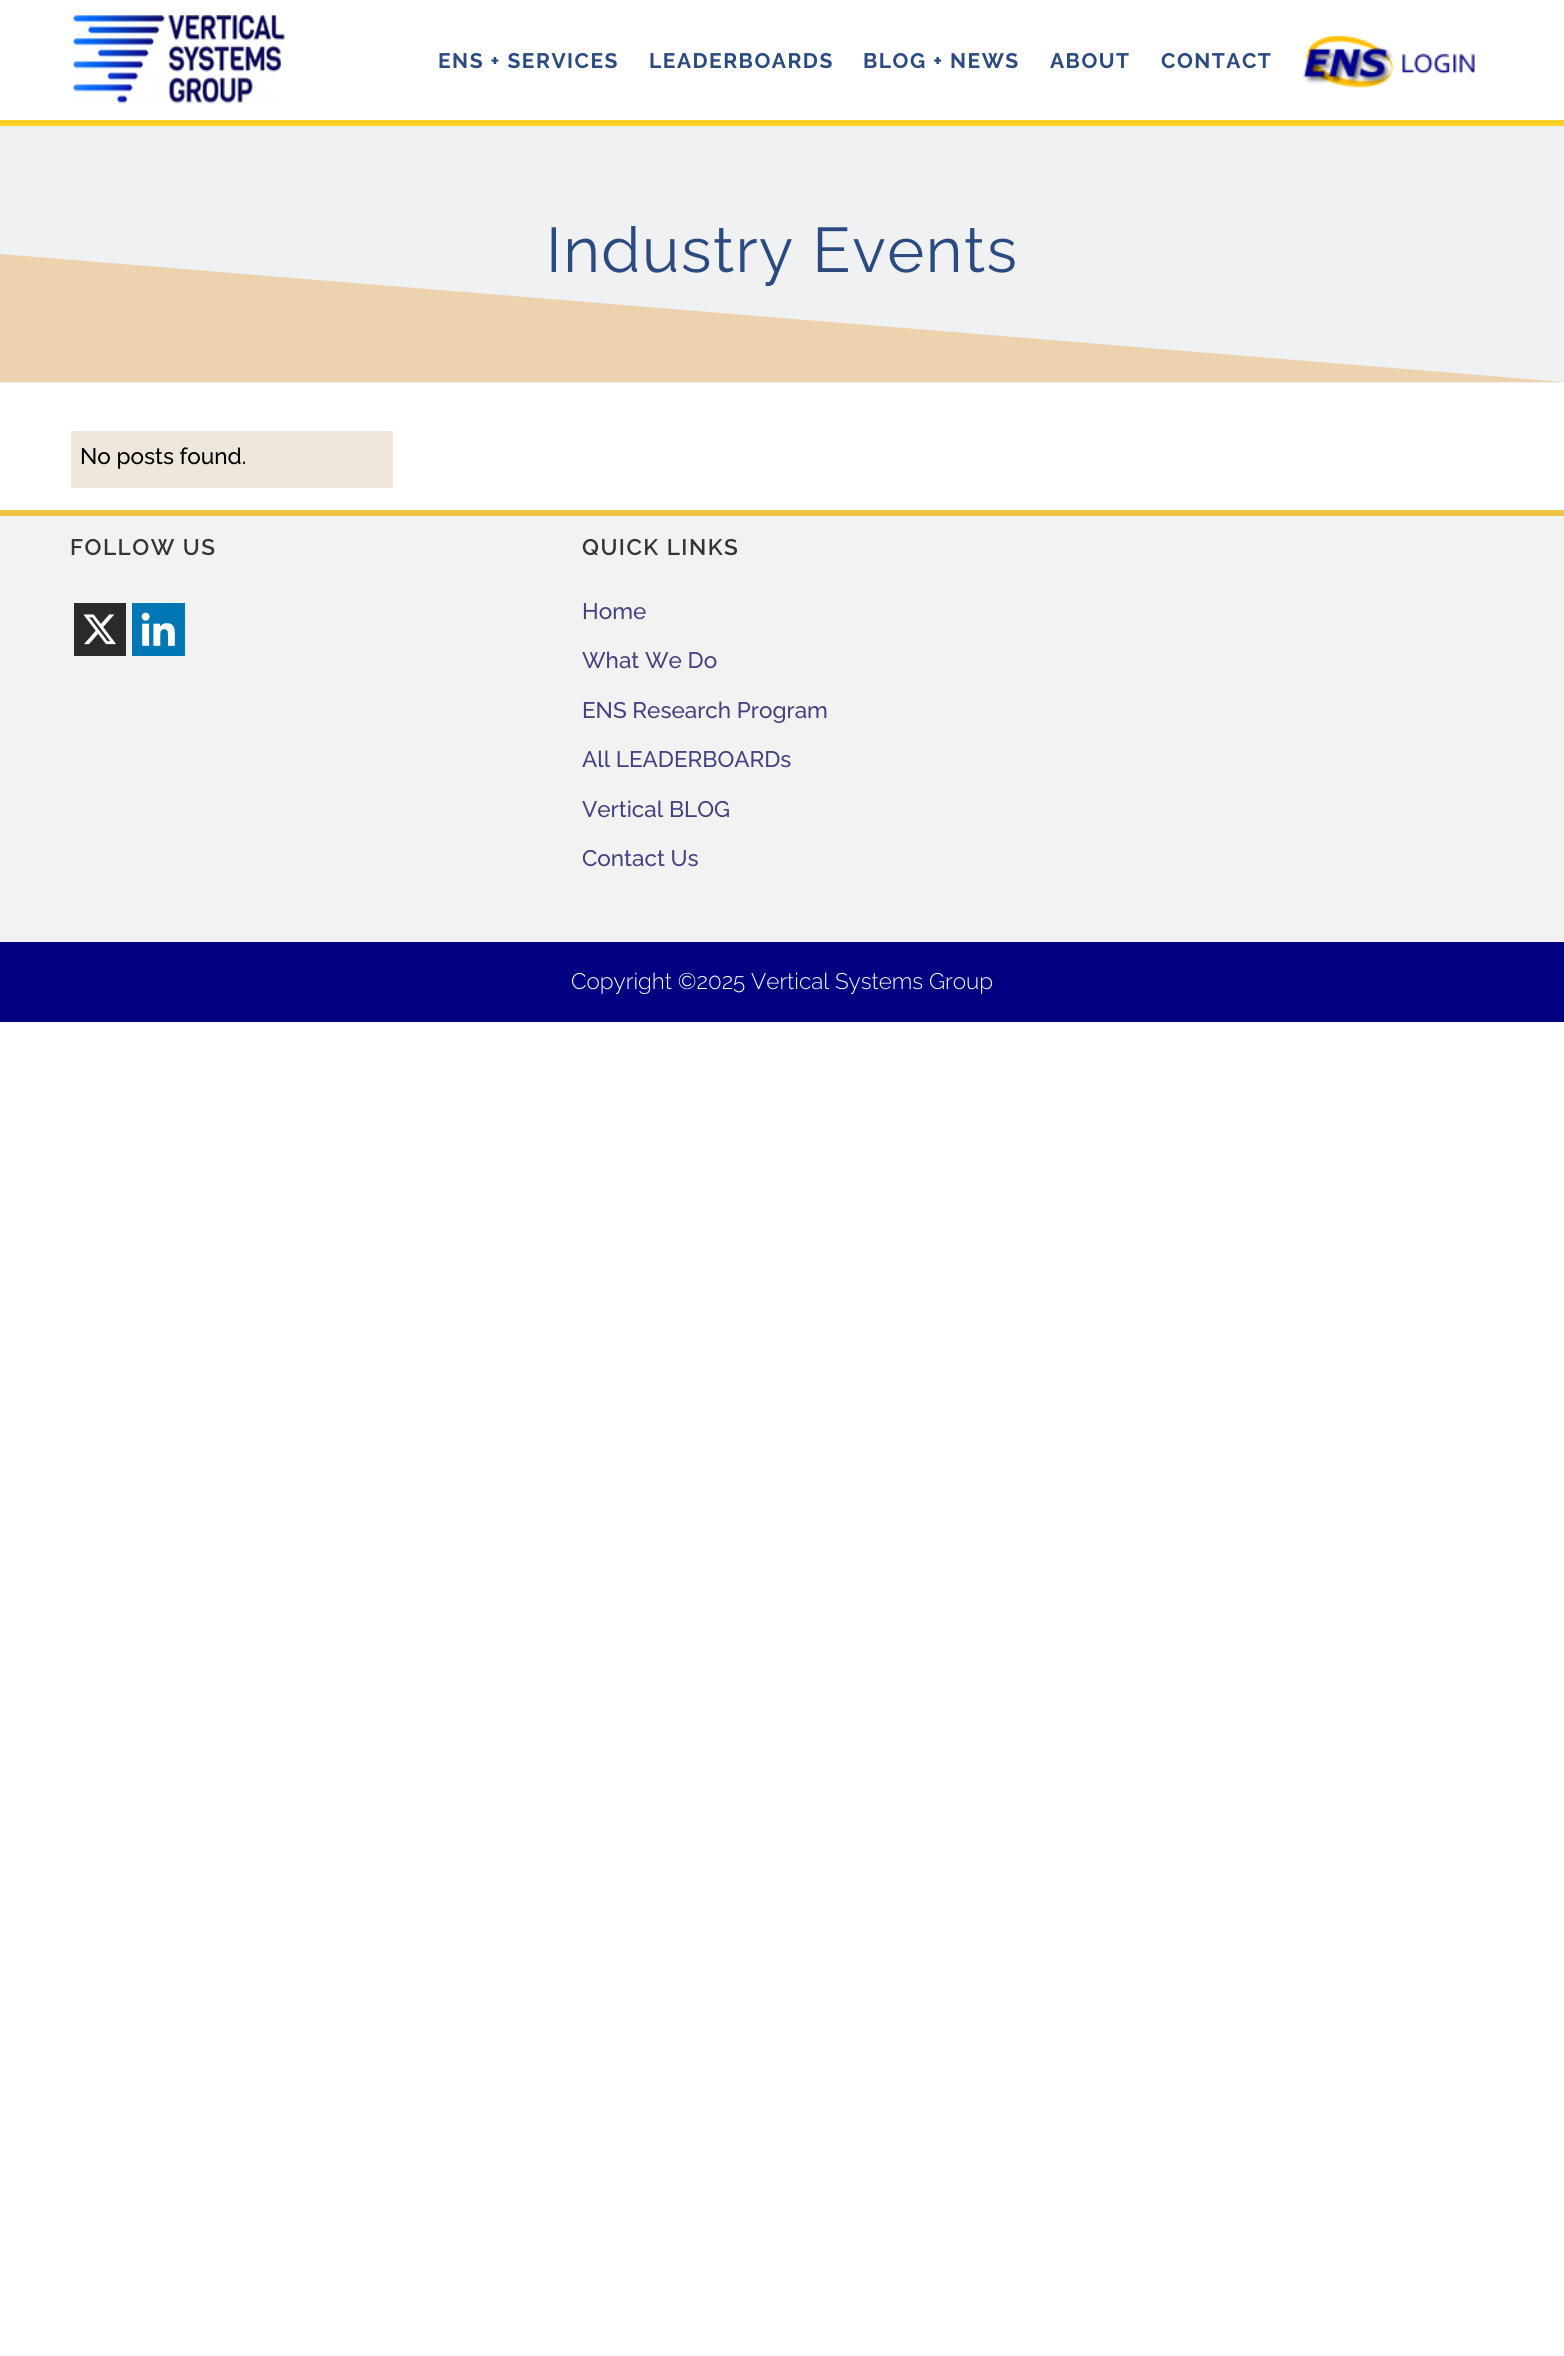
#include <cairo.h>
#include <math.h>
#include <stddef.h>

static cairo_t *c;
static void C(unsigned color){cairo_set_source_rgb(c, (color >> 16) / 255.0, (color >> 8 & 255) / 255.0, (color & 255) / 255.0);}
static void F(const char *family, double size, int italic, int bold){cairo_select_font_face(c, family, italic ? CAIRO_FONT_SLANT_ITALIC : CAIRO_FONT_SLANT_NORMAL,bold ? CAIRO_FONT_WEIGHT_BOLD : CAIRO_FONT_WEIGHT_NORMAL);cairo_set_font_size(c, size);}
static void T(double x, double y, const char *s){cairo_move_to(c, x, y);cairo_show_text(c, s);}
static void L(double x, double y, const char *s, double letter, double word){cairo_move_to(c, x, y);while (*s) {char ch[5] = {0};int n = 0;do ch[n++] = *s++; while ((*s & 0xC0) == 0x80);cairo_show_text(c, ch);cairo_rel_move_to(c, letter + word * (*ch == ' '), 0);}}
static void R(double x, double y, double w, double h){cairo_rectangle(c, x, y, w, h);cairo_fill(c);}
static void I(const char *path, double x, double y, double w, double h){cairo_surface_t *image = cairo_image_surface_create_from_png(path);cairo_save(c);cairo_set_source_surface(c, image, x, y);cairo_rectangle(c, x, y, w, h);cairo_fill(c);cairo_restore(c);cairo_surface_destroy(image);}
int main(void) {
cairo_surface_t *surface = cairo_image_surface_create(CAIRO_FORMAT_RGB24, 1564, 2356);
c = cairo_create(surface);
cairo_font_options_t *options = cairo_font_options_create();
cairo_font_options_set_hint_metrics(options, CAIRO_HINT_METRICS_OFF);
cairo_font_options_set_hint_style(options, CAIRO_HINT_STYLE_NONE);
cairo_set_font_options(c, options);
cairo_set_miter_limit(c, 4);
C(0xffffff);
cairo_paint(c);
C(0xfcd123);
R(0,120,1564,6);
I("1.png",72,14,213,90);
F("Raleway",21,0,1);
C(0x2b4b80);
L(438,68,"ENS + SERVICES",1.5,0);
L(649,68,"LEADERBOARDS",1.5,0);
L(863,68,"BLOG + NEWS",1.5,0);
L(1050,68,"ABOUT",1.5,0);
L(1161,68,"CONTACT",1.5,0);
I("2.png",1303,36,172,52);
C(0xf0f1f3);
R(0,126,1564,257);
C(0xedd3ad);
cairo_new_path(c);
cairo_move_to(c,0,254);
cairo_line_to(c,0,382);
cairo_line_to(c,1564,382);
cairo_close_path(c);
cairo_fill(c);
F("Raleway",63,0,0);
C(0x2b4b80);
L(546,272,"Industry Events",1.5,0);
C(0xefe7db);
R(71,431,322,57);
F("Raleway Medium",22.5,0,0);
C(0x000000);
T(80,464,"No posts found.");
C(0xf2f2f2);
R(0,516,1564,426);
C(0xedc247);
R(0,510,1564,6);
F("Raleway SemiBold",22.5,0,0);
C(0x353535);
L(70,555,"FOLLOW US",1.5,0);
C(0x2a2a2a);
R(74,603,52,53);
I("3.png",83,614,33,31);
C(0x0077b5);
R(132,603,53,53);
I("4.png",141,612,34,34);
C(0x353535);
L(582,555,"QUICK LINKS",1.5,0);
F("Raleway Medium",22.5,0,0);
C(0x42417f);
T(582,619,"Home");
T(582,668,"What We Do");
T(582,718,"ENS Research Program");
T(582,767,"All LEADERBOARDs");
T(582,817,"Vertical BLOG");
T(582,866,"Contact Us");
C(0x000080);
R(0,942,1564,80);
F("Raleway Light",22.5,0,0);
C(0xffffff);
T(571,989,"Copyright ©2025 Vertical Systems Group");
cairo_surface_write_to_png(surface, "o.png");
cairo_font_options_destroy(options);
cairo_destroy(c);
cairo_surface_destroy(surface);
return 0;
}
